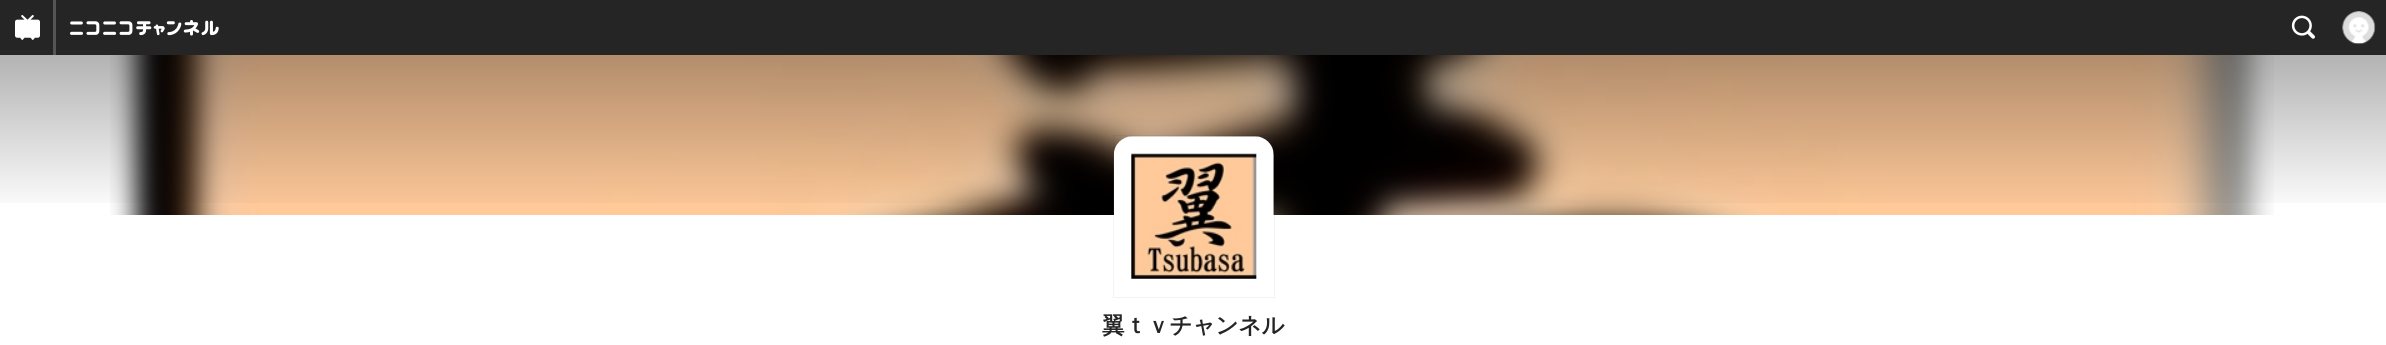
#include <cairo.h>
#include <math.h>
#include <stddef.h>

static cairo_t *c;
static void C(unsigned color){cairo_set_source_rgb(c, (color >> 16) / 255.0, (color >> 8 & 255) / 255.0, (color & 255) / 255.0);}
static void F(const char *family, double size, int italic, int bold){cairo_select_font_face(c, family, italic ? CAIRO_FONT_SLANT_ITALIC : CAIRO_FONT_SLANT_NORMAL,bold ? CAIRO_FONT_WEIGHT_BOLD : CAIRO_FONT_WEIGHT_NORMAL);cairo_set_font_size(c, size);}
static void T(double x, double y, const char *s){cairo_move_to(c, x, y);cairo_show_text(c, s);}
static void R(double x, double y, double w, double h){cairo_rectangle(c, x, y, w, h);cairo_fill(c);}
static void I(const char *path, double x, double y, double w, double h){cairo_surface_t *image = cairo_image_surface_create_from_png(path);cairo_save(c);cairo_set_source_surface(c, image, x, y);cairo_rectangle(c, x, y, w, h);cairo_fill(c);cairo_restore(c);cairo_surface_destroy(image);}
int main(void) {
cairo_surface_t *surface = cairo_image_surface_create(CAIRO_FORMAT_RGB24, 2386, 345);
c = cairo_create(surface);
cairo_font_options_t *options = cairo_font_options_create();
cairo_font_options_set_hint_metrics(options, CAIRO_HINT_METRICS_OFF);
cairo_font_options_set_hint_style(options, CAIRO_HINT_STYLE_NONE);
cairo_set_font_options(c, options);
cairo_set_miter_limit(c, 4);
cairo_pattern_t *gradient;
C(0xffffff);
cairo_paint(c);
C(0x252525);
R(0,0,2386,55);
I("1.png",15,15,25,25);
C(0x555555);
R(53,0,3,55);
I("2.png",70,20,149,16);
I("3.png",2291,15,24,24);
I("4.png",2342,11,34,34);
I("5.png",110,55,2164,160);
gradient = cairo_pattern_create_linear(1193,55,1193,215);
cairo_pattern_add_color_stop_rgba(gradient,0,0,0,0,.3);
cairo_pattern_add_color_stop_rgba(gradient,1,0,0,0,0);
cairo_set_source(c,gradient);
cairo_pattern_destroy(gradient);
R(0,55,2386,148);
cairo_rectangle(c,1113.5,135.5,161,162);
cairo_set_source_rgba(c,0,0,0,0.05);
cairo_set_line_width(c,1);
cairo_stroke(c);
I("6.png",1113,136,161,143);
F("WenQuanYi Zen Hei",22.5,0,1);
C(0x252525);
T(1102,333,"翼ｔｖチャンネル");
cairo_surface_write_to_png(surface, "o.png");
cairo_font_options_destroy(options);
cairo_destroy(c);
cairo_surface_destroy(surface);
return 0;
}
